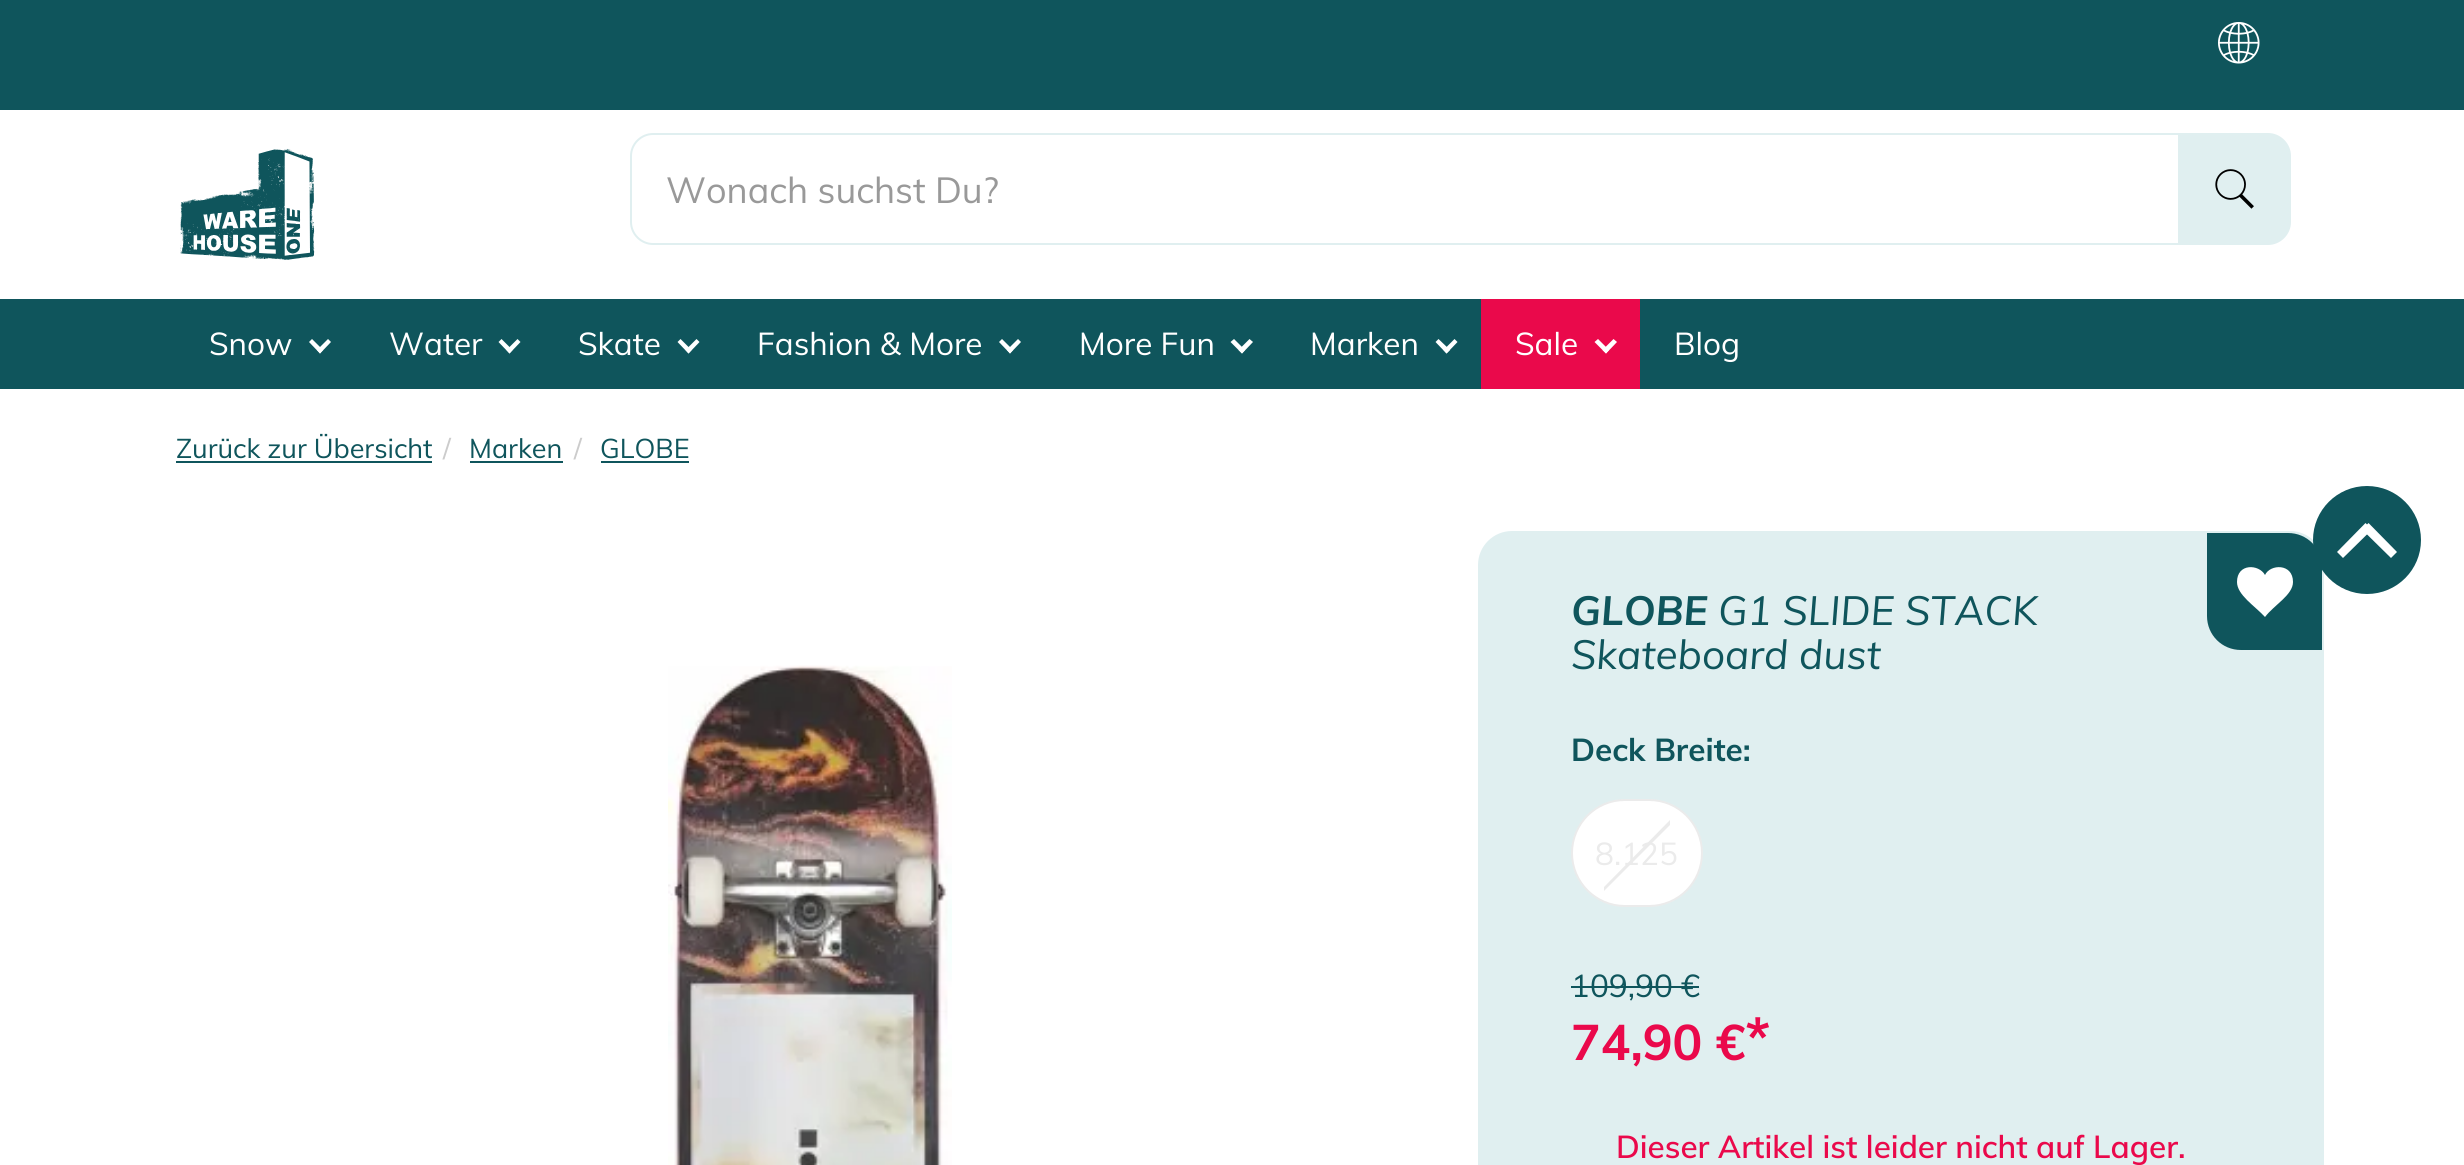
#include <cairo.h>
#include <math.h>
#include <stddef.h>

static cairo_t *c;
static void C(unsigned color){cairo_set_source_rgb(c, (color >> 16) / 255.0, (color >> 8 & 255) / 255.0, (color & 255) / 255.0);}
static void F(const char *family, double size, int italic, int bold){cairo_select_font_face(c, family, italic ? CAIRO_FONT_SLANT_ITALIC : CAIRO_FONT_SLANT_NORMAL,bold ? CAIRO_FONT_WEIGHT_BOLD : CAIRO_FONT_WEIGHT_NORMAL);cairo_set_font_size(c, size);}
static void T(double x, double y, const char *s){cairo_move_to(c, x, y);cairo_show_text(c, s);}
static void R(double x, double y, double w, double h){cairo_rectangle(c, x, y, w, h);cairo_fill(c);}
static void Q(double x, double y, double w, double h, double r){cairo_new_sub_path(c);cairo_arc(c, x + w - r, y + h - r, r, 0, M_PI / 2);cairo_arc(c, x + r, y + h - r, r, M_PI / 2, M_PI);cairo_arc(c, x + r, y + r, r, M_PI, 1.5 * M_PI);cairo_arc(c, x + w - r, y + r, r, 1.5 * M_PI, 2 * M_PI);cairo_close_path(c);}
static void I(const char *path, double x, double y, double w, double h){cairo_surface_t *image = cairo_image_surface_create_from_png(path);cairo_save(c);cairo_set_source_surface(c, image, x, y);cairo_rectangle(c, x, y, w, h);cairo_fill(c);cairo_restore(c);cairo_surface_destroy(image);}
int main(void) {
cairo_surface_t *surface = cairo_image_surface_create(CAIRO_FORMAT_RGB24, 2464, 1165);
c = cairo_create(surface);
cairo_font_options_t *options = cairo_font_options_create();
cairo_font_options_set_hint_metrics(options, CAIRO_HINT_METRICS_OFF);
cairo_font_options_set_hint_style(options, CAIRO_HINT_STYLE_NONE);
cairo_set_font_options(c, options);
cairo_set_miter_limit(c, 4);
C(0xffffff);
cairo_paint(c);
C(0x0f555c);
R(0,0,2464,110);
I("1.png",2218,22,42,42);
I("2.png",180,148,135,112);
cairo_new_path(c);
cairo_move_to(c,653,134);
cairo_line_to(c,2179,134);
cairo_line_to(c,2179,244);
cairo_line_to(c,653,244);
cairo_curve_to(c,641,244,631,234,631,222);
cairo_line_to(c,631,156);
cairo_curve_to(c,631,144,641,134,653,134);
cairo_close_path(c);
C(0xe0eff0);
cairo_stroke(c);
F("Muli",36,0,0);
C(0x999999);
T(666,203,"Wonach suchst Du?");
C(0xe0eff0);
cairo_new_path(c);
cairo_move_to(c,2179,134);
cairo_line_to(c,2268,134);
cairo_curve_to(c,2280,134,2290,144,2290,156);
cairo_line_to(c,2290,222);
cairo_curve_to(c,2290,234,2280,244,2268,244);
cairo_line_to(c,2179,244);
cairo_close_path(c);
cairo_fill_preserve(c);
cairo_stroke(c);
I("3.png",2215,169,39,40);
C(0x0f555c);
R(0,299,2464,90);
F("Muli",31.5,0,0);
C(0xffffff);
T(209,355,"Snow");
cairo_new_path(c);
cairo_move_to(c,331,342);
cairo_line_to(c,320,353.5);
cairo_line_to(c,317,350);
cairo_line_to(c,328,339);
cairo_close_path(c);
cairo_fill(c);
cairo_new_path(c);
cairo_move_to(c,323,350);
cairo_line_to(c,320,353.5);
cairo_line_to(c,309,342);
cairo_line_to(c,312,339);
cairo_close_path(c);
cairo_fill(c);
T(389,355,"Water");
cairo_new_path(c);
cairo_move_to(c,520.5,342);
cairo_line_to(c,509.5,353.5);
cairo_line_to(c,506.5,350);
cairo_line_to(c,517.5,339);
cairo_close_path(c);
cairo_fill(c);
cairo_new_path(c);
cairo_move_to(c,512.5,350);
cairo_line_to(c,509.5,353.5);
cairo_line_to(c,498.5,342);
cairo_line_to(c,501.5,339);
cairo_close_path(c);
cairo_fill(c);
T(578,355,"Skate");
cairo_new_path(c);
cairo_move_to(c,699.5,342);
cairo_line_to(c,688.5,353.5);
cairo_line_to(c,685.5,350);
cairo_line_to(c,696.5,339);
cairo_close_path(c);
cairo_fill(c);
cairo_new_path(c);
cairo_move_to(c,691.5,350);
cairo_line_to(c,688.5,353.5);
cairo_line_to(c,677.5,342);
cairo_line_to(c,680.5,339);
cairo_close_path(c);
cairo_fill(c);
T(757,355,"Fashion & More");
cairo_new_path(c);
cairo_move_to(c,1021,342);
cairo_line_to(c,1010,353.5);
cairo_line_to(c,1007,350);
cairo_line_to(c,1018,339);
cairo_close_path(c);
cairo_fill(c);
cairo_new_path(c);
cairo_move_to(c,1013,350);
cairo_line_to(c,1010,353.5);
cairo_line_to(c,999,342);
cairo_line_to(c,1002,339);
cairo_close_path(c);
cairo_fill(c);
T(1079,355,"More Fun");
cairo_new_path(c);
cairo_move_to(c,1253,342);
cairo_line_to(c,1242,353.5);
cairo_line_to(c,1238.5,350);
cairo_line_to(c,1249.5,339);
cairo_close_path(c);
cairo_fill(c);
cairo_new_path(c);
cairo_move_to(c,1245,350);
cairo_line_to(c,1242,353.5);
cairo_line_to(c,1230.5,342);
cairo_line_to(c,1234,339);
cairo_close_path(c);
cairo_fill(c);
T(1310,355,"Marken");
cairo_new_path(c);
cairo_move_to(c,1457.5,342);
cairo_line_to(c,1446.5,353.5);
cairo_line_to(c,1443.5,350);
cairo_line_to(c,1454.5,339);
cairo_close_path(c);
cairo_fill(c);
cairo_new_path(c);
cairo_move_to(c,1450,350);
cairo_line_to(c,1446.5,353.5);
cairo_line_to(c,1435.5,342);
cairo_line_to(c,1438.5,339);
cairo_close_path(c);
cairo_fill(c);
C(0xea094b);
R(1481,299,159,90);
C(0xffffff);
T(1515,355,"Sale");
cairo_new_path(c);
cairo_move_to(c,1617,342);
cairo_line_to(c,1606,353.5);
cairo_line_to(c,1602.5,350);
cairo_line_to(c,1613.5,339);
cairo_close_path(c);
cairo_fill(c);
cairo_new_path(c);
cairo_move_to(c,1609,350);
cairo_line_to(c,1606,353.5);
cairo_line_to(c,1594.5,342);
cairo_line_to(c,1598,339);
cairo_close_path(c);
cairo_fill(c);
T(1674,355,"Blog");
F("Muli",27,0,0);
C(0x0f555c);
T(176,458,"Zurück zur Übersicht");
R(176,461,256,2);
C(0xcccccc);
T(443,458,"/");
C(0x0f555c);
T(469,458,"Marken");
R(470,461,93,2);
C(0xcccccc);
T(574,458,"/");
C(0x0f555c);
T(600,458,"GLOBE");
R(601,461,88,2);
I("4.png",668,665,284,500);
C(0xe0eff0);
Q(1479,532,844,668,33);
cairo_fill_preserve(c);
cairo_stroke(c);
F("Muli",40.5,1,1);
C(0x0f555c);
T(1571,625,"GLOBE");
F("Muli",40.5,1,0);
T(1718,625,"G1 SLIDE STACK");
T(1571,669,"Skateboard dust");
cairo_new_path(c);
cairo_move_to(c,2207,533);
cairo_line_to(c,2288,533);
cairo_curve_to(c,2307,533,2322,548,2322,567);
cairo_line_to(c,2322,650);
cairo_line_to(c,2241,650);
cairo_curve_to(c,2222,650,2207,635,2207,616);
cairo_close_path(c);
cairo_fill(c);
C(0xffffff);
cairo_new_path(c);
cairo_move_to(c,2237,582);
cairo_curve_to(c,2237,563,2259,564,2265,575);
cairo_curve_to(c,2270,564,2293,563,2293,582);
cairo_curve_to(c,2293,595,2274,605,2265,617);
cairo_curve_to(c,2255,606,2237,595,2237,582);
cairo_close_path(c);
cairo_fill(c);
F("Muli",31.5,0,1);
C(0x0f555c);
T(1571,761,"Deck Breite:");
C(0xffffff);
Q(1572,800,130,106,53);
cairo_fill_preserve(c);
C(0xebebeb);
cairo_stroke(c);
cairo_new_path(c);
cairo_move_to(c,1604,887);
cairo_line_to(c,1670,820);
cairo_line_to(c,1670,825);
cairo_line_to(c,1604,891);
cairo_close_path(c);
cairo_fill(c);
F("Muli",31.5,0,0);
T(1595,865,"8.125");
C(0x0f555c);
T(1571,997,"109,90 €");
R(1571,986,128,2);
F("Muli",49.5,0,1);
C(0xea094b);
T(1571,1060,"74,90 €");
F("Muli",56,0,1);
T(1745,1058,"*");
F("Muli SemiBold",31.5,0,0);
T(1616,1158,"Dieser Artikel ist leider nicht auf Lager.");
C(0x0f555c);
cairo_new_path(c);
cairo_arc(c,2367,540,54,0,2 * M_PI);
cairo_fill(c);
C(0xffffff);
cairo_new_path(c);
cairo_move_to(c,2337,552);
cairo_line_to(c,2365.5,523);
cairo_line_to(c,2372,529.5);
cairo_line_to(c,2343,558);
cairo_close_path(c);
cairo_fill(c);
cairo_new_path(c);
cairo_move_to(c,2362,529.5);
cairo_line_to(c,2368.5,523);
cairo_line_to(c,2397,552);
cairo_line_to(c,2391,558);
cairo_close_path(c);
cairo_fill(c);
cairo_surface_write_to_png(surface, "o.png");
cairo_font_options_destroy(options);
cairo_destroy(c);
cairo_surface_destroy(surface);
return 0;
}
